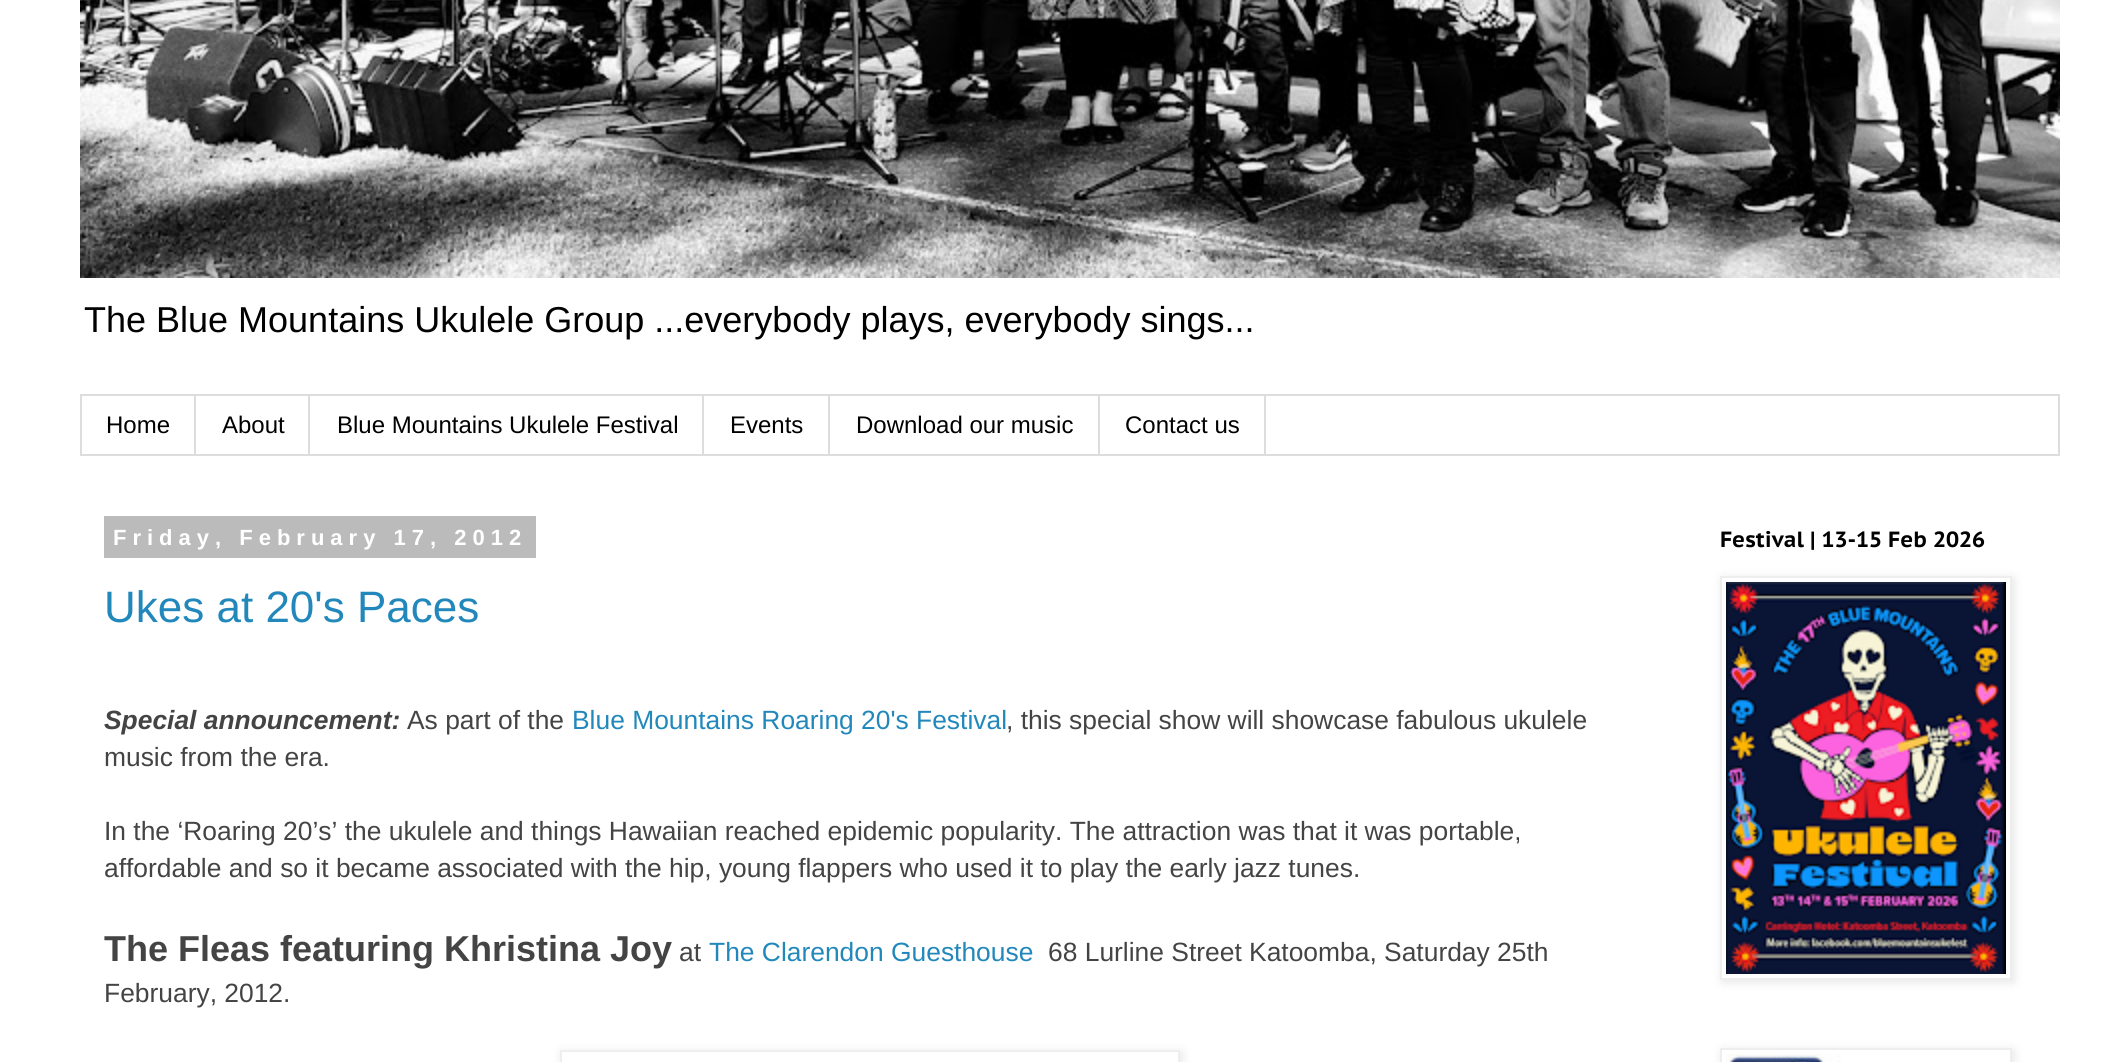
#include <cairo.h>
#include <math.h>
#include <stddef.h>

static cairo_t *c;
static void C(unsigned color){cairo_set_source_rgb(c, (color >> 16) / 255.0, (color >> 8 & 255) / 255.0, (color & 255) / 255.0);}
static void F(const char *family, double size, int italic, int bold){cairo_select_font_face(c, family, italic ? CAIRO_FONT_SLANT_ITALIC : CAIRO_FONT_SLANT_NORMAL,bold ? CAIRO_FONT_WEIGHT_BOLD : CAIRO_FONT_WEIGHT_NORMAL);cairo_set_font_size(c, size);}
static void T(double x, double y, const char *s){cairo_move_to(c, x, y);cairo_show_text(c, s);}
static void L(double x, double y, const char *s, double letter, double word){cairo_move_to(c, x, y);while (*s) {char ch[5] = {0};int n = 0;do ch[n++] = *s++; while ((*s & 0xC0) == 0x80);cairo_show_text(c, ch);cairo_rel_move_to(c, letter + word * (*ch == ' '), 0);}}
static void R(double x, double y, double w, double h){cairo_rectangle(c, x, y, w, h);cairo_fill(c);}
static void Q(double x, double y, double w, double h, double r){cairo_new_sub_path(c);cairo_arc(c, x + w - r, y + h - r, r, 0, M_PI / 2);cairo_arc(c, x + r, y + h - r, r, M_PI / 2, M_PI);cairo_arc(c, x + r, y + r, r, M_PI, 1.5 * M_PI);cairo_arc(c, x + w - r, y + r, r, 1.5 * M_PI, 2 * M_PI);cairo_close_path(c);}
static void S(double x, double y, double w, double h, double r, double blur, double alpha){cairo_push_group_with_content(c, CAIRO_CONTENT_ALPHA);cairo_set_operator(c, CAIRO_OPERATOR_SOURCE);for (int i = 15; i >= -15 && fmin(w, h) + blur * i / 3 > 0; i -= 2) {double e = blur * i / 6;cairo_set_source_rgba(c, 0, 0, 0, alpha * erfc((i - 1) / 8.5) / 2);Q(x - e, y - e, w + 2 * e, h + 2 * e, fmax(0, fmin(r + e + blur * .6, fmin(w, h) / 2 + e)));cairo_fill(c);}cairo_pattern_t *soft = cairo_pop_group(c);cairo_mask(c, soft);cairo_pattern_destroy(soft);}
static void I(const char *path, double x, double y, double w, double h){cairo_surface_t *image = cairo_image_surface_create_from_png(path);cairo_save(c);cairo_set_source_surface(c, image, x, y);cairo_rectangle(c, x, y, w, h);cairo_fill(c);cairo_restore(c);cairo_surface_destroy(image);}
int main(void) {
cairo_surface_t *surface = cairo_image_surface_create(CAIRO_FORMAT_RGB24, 2104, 1062);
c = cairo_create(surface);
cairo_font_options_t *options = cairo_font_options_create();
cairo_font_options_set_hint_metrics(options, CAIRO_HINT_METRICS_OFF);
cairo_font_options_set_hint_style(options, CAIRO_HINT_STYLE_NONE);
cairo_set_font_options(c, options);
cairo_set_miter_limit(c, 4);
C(0xffffff);
cairo_paint(c);
I("1.png",80,0,1980,278);
F("Liberation Sans",36,0,0);
C(0x000000);
T(84,332,"The Blue Mountains Ukulele Group ...everybody plays, everybody sings...");
cairo_rectangle(c,81,395,1978,60);
C(0xdddddd);
cairo_stroke(c);
R(194,396,2,58);
F("Liberation Sans",24,0,0);
C(0x000000);
T(106,433,"Home");
C(0xdddddd);
R(308,396,2,58);
C(0x000000);
T(222,433,"About");
C(0xdddddd);
R(702,396,2,58);
C(0x000000);
T(337,433,"Blue Mountains Ukulele Festival");
C(0xdddddd);
R(828,396,2,58);
C(0x000000);
T(730,433,"Events");
C(0xdddddd);
R(1098,396,2,58);
C(0x000000);
T(856,433,"Download our music");
C(0xdddddd);
R(1264,396,2,58);
C(0x000000);
T(1125,433,"Contact us");
C(0xbbbbbb);
R(104,516,432,42);
F("Liberation Sans",22,0,1);
C(0xffffff);
L(113,545,"Friday, February 17, 2012",6,0);
F("Liberation Sans",44,0,0);
C(0x2288bb);
T(104,622,"Ukes at 20's Paces");
F("Liberation Sans",26.4,1,1);
C(0x444444);
T(104,729,"Special announcement:");
F("Liberation Sans",26.4,0,0);
T(407,729,"As part of the");
C(0x2288bb);
T(572,729,"Blue Mountains Roaring 20's Festival");
C(0x444444);
T(1006,729,", this special show will showcase fabulous ukulele");
T(104,766,"music from the era.");
T(104,840,"In the ‘Roaring 20’s’ the ukulele and things Hawaiian reached epidemic popularity. The attraction was that it was portable,");
T(104,877,"affordable and so it became associated with the hip, young flappers who used it to play the early jazz tunes.");
F("Liberation Sans",36,0,1);
T(104,961,"The Fleas featuring Khristina Joy");
F("Liberation Sans",26.4,0,0);
T(679,961,"at");
C(0x2288bb);
T(709,961,"The Clarendon Guesthouse");
C(0x444444);
T(1048,961,"68 Lurline Street Katoomba, Saturday 25th");
T(104,1002,"February, 2012.");
cairo_save(c);
cairo_set_fill_rule(c,CAIRO_FILL_RULE_EVEN_ODD);
cairo_new_path(c);
cairo_move_to(c,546,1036);
cairo_line_to(c,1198,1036);
cairo_line_to(c,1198,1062);
cairo_line_to(c,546,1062);
cairo_close_path(c);
cairo_move_to(c,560,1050);
cairo_line_to(c,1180,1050);
cairo_line_to(c,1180,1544);
cairo_line_to(c,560,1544);
cairo_close_path(c);
cairo_clip(c);
C(0x000000);
S(562,1052,620,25,0,5,.1);
cairo_restore(c);
cairo_rectangle(c,561,1051,618,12);
C(0xeeeeee);
cairo_stroke(c);
F("PT Sans Caption",22,0,1);
C(0x000000);
T(1720,547,"Festival | 13-15 Feb 2026");
cairo_save(c);
cairo_set_fill_rule(c,CAIRO_FILL_RULE_EVEN_ODD);
cairo_new_path(c);
cairo_move_to(c,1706,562);
cairo_line_to(c,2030,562);
cairo_line_to(c,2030,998);
cairo_line_to(c,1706,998);
cairo_close_path(c);
cairo_move_to(c,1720,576);
cairo_line_to(c,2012,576);
cairo_line_to(c,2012,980);
cairo_line_to(c,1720,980);
cairo_close_path(c);
cairo_clip(c);
C(0x000000);
S(1722,578,292,404,0,5,.1);
cairo_restore(c);
cairo_rectangle(c,1721,577,290,402);
C(0xeeeeee);
cairo_stroke(c);
I("2.png",1726,582,280,392);
cairo_save(c);
cairo_set_fill_rule(c,CAIRO_FILL_RULE_EVEN_ODD);
cairo_new_path(c);
cairo_move_to(c,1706,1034);
cairo_line_to(c,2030,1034);
cairo_line_to(c,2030,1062);
cairo_line_to(c,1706,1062);
cairo_close_path(c);
cairo_move_to(c,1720,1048);
cairo_line_to(c,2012,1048);
cairo_line_to(c,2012,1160);
cairo_line_to(c,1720,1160);
cairo_close_path(c);
cairo_clip(c);
C(0x000000);
S(1722,1050,292,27,0,5,.1);
cairo_restore(c);
cairo_rectangle(c,1721,1049,290,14);
cairo_stroke(c);
I("3.png",1726,1054,116,8);
cairo_surface_write_to_png(surface, "o.png");
cairo_font_options_destroy(options);
cairo_destroy(c);
cairo_surface_destroy(surface);
return 0;
}
